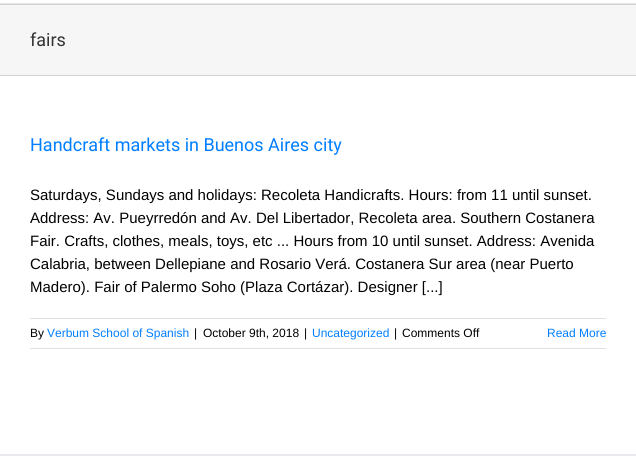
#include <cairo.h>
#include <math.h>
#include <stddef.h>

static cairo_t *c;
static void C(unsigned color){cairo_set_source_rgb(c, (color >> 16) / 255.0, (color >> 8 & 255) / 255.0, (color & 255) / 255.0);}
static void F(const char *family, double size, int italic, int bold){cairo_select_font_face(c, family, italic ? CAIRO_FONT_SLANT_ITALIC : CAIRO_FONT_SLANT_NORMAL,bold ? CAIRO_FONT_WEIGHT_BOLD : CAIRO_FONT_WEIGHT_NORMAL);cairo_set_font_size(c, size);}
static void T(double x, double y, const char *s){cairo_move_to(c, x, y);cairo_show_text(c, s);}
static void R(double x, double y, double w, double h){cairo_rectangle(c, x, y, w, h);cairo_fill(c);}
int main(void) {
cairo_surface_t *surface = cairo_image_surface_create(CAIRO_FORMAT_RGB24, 636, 456);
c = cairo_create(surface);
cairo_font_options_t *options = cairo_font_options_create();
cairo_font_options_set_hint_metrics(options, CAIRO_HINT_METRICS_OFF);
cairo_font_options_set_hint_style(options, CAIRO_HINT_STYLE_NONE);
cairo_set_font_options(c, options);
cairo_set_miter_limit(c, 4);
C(0xffffff);
cairo_paint(c);
C(0xe5e5e5);
R(0,3,636,1);
C(0xf6f6f6);
R(0,5,636,70);
C(0xd2d3d4);
R(0,4,636,1);
R(0,75,636,1);
F("Roboto",18,0,0);
C(0x333333);
T(30,46,"fairs");
C(0x007eff);
T(30,151,"Handcraft markets in Buenos Aires city");
F("Liberation Sans",15,0,0);
C(0x000000);
T(30,200,"Saturdays, Sundays and holidays: Recoleta Handicrafts. Hours: from 11 until sunset.");
T(30,223,"Address: Av. Pueyrredón and Av. Del Libertador, Recoleta area. Southern Costanera");
T(30,246,"Fair. Crafts, clothes, meals, toys, etc ... Hours from 10 until sunset. Address: Avenida");
T(30,269,"Calabria, between Dellepiane and Rosario Verá. Costanera Sur area (near Puerto");
T(30,292,"Madero). Fair of Palermo Soho (Plaza Cortázar). Designer [...]");
C(0xe0dede);
R(30,318,576,1);
R(30,348,576,1);
F("Liberation Sans",12,0,0);
C(0x000000);
T(30,337,"By");
C(0x007eff);
T(47,337,"Verbum School of Spanish");
C(0x000000);
T(194,337,"|");
T(203,337,"October 9th, 2018");
T(304,337,"|");
C(0x007eff);
T(312,337,"Uncategorized");
C(0x000000);
T(394,337,"|");
T(402,337,"Comments Off");
C(0x007eff);
T(547,337,"Read More");
C(0xe9eaee);
R(0,454,636,2);
cairo_surface_write_to_png(surface, "o.png");
cairo_font_options_destroy(options);
cairo_destroy(c);
cairo_surface_destroy(surface);
return 0;
}
